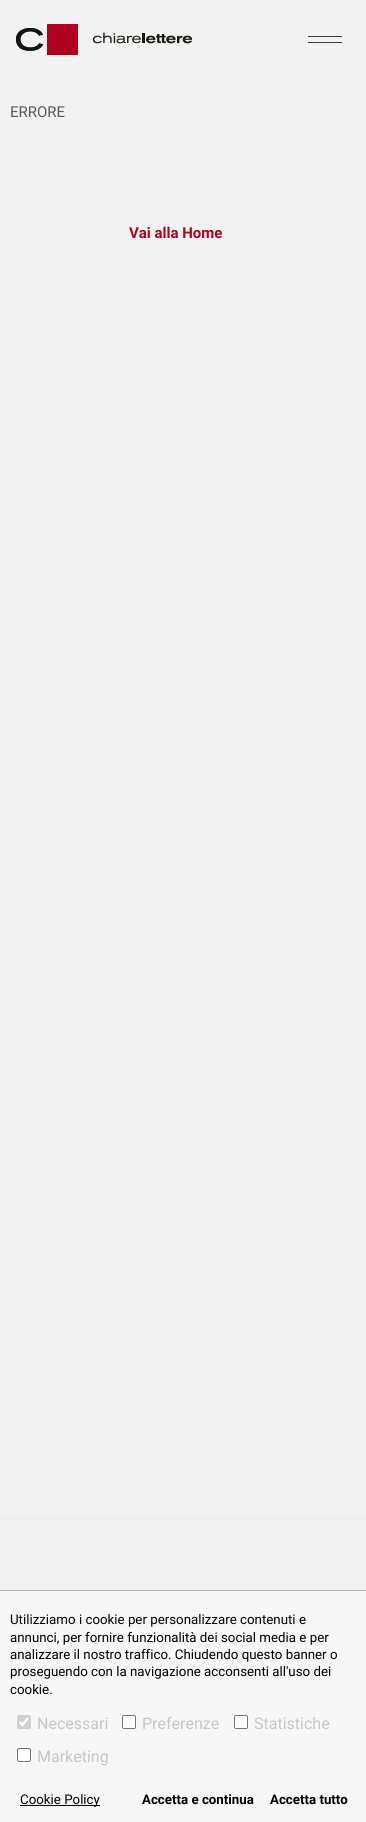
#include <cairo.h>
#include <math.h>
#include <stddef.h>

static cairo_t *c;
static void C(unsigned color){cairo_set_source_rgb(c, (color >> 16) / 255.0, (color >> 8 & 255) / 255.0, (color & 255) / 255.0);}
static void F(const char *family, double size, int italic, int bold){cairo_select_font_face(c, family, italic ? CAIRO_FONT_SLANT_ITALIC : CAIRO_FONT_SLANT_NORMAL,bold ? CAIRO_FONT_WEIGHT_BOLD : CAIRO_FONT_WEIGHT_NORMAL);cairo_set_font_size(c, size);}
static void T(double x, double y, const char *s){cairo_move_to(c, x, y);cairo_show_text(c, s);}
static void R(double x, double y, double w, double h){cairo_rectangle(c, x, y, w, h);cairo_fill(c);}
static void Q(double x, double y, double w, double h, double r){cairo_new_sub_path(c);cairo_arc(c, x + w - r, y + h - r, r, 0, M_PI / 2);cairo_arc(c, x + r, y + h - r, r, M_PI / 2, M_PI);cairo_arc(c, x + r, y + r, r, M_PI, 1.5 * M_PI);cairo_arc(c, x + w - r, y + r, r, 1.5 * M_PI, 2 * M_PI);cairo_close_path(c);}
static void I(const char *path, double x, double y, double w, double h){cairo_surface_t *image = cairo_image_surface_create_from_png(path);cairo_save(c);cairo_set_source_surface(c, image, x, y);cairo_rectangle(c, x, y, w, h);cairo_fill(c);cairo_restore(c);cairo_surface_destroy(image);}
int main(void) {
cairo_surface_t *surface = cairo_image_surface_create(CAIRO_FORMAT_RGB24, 366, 1822);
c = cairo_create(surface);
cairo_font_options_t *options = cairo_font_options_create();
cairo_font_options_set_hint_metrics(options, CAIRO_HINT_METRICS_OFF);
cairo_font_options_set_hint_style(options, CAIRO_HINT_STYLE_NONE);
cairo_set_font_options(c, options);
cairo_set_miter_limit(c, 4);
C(0xf2f2f2);
cairo_paint(c);
I("1.png",16,24,176,31);
C(0x3c3c3c);
R(308,36,34,1);
R(308,42,34,1);
F("Roboto",15,0,0);
C(0x5a5a5a);
T(10,117,"ERRORE");
F("Roboto",15,0,1);
C(0xb0001f);
T(129,238,"Vai alla Home");
C(0xf8f7f7);
R(0,1591,366,231);
C(0xadb5bd);
R(0,1590,366,1);
F("Roboto",13.3,0,0);
C(0x000000);
T(10,1624,"Utilizziamo i cookie per personalizzare contenuti e");
T(10,1642,"annunci, per fornire funzionalità dei social media e per");
T(10,1659,"analizzare il nostro traffico. Chiudendo questo banner o");
T(10,1676,"proseguendo con la navigazione acconsenti all'uso dei");
T(10,1694,"cookie.");
C(0xd1d0d0);
Q(17,1715,14,14,2);
cairo_fill(c);
cairo_new_path(c);
cairo_move_to(c,20,1722);
cairo_line_to(c,22.5,1725);
cairo_line_to(c,28,1718);
C(0xffffff);
cairo_set_line_width(c,2.2);
cairo_stroke(c);
F("Roboto",16,0,0);
C(0xc6c6c6);
T(37,1729,"Necessari");
C(0xffffff);
Q(122.5,1715.5,13,13,1.5);
cairo_fill_preserve(c);
C(0x767676);
cairo_set_line_width(c,1);
cairo_stroke(c);
C(0xc6c6c6);
T(142,1729,"Preferenze");
C(0xffffff);
Q(234.5,1715.5,13,13,1.5);
cairo_fill_preserve(c);
C(0x767676);
cairo_stroke(c);
C(0xc6c6c6);
T(254,1729,"Statistiche");
C(0xffffff);
Q(17.5,1748.5,13,13,1.5);
cairo_fill_preserve(c);
C(0x767676);
cairo_stroke(c);
C(0xc6c6c6);
T(37,1762,"Marketing");
C(0x000000);
R(20,1805,80,1);
F("Roboto",13.3,0,0);
T(20,1804,"Cookie Policy");
F("Roboto",13.3,0,1);
T(142,1804,"Accetta e continua");
T(270,1804,"Accetta tutto");
C(0xeaeaea);
R(0,1518,366,1);
cairo_surface_write_to_png(surface, "o.png");
cairo_font_options_destroy(options);
cairo_destroy(c);
cairo_surface_destroy(surface);
return 0;
}
